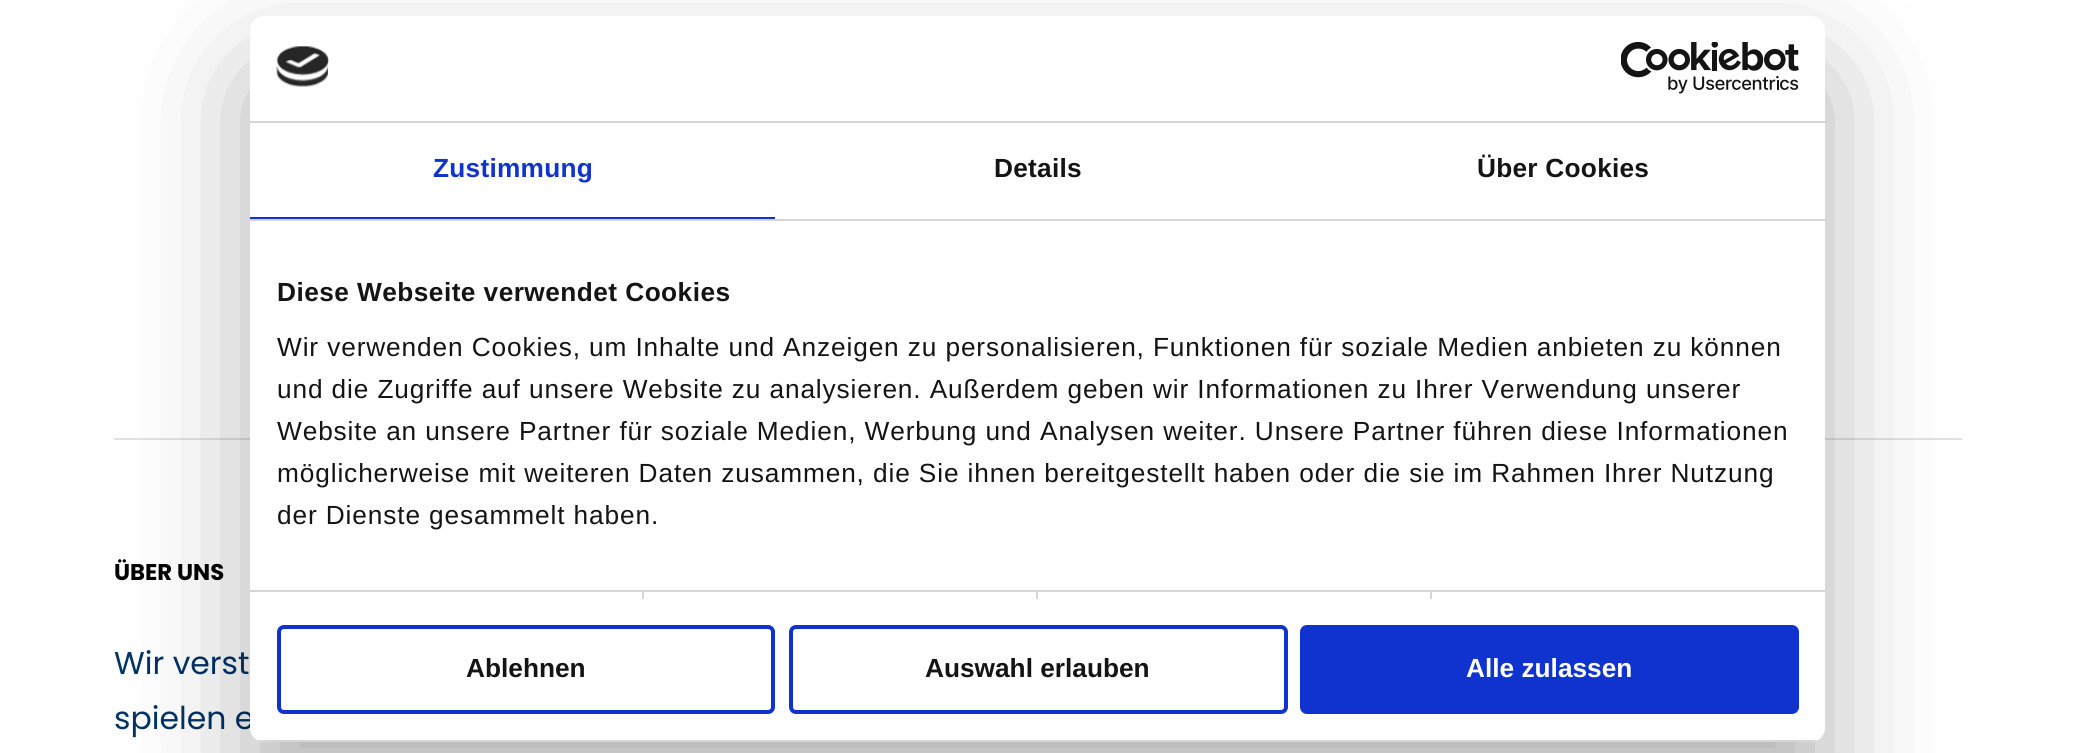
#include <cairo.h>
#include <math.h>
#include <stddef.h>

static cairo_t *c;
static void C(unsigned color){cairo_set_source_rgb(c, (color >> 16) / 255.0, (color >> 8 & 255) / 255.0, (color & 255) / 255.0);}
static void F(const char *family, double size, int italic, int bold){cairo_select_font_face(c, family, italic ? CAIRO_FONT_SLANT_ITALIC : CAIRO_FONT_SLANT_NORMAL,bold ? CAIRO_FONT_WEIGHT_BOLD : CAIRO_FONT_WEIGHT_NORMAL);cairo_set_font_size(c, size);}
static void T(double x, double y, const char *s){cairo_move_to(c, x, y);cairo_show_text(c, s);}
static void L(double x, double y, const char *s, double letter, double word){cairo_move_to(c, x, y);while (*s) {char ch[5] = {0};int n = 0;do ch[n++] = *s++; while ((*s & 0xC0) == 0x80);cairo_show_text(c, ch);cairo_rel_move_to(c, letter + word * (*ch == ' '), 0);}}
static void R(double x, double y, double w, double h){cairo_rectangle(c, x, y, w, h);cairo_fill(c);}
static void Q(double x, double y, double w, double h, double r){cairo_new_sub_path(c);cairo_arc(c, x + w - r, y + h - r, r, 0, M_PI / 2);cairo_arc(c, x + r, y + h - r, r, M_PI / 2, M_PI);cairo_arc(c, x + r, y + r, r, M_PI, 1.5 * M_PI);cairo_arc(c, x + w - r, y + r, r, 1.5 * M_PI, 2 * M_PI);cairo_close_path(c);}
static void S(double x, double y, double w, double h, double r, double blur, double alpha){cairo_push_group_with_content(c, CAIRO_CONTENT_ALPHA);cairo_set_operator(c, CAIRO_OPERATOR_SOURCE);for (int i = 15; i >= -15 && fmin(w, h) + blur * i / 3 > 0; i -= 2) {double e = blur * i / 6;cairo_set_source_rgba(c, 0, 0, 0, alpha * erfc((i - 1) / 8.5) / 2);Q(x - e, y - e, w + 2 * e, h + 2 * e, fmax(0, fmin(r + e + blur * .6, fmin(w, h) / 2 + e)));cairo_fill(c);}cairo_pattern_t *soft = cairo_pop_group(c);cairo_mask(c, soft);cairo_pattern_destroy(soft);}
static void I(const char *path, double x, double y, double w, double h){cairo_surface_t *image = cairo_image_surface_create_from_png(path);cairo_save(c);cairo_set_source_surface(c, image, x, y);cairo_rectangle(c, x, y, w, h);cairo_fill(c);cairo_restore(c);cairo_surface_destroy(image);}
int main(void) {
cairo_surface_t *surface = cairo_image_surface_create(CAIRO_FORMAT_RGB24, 2075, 753);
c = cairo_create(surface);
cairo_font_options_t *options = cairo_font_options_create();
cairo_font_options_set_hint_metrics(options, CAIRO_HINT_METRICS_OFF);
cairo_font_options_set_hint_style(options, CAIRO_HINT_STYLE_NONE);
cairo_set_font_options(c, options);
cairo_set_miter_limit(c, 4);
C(0xffffff);
cairo_paint(c);
C(0xe2e2e2);
R(114,438,1848,2);
F("Poppins",22.75,0,1);
C(0x000000);
T(114,580,"ÜBER UNS");
F("Poppins",31.5,0,0);
C(0x003366);
T(114,674,"Wir verst");
T(114,729,"spielen e");
C(0x000000);
S(250,72,1575,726,14,59.5,.3);
C(0xffffff);
Q(250,16,1575,726,14);
cairo_fill(c);
C(0xd6d6d6);
R(250,121,1575,2);
I("1.png",276,46,53,41);
I("2.png",1621,42,178,52);
R(250,219,1575,2);
C(0x1032cf);
R(250,217,525,2);
F("Liberation Sans",26.25,0,1);
L(433,177,"Zustimmung",.25,0);
C(0x141414);
L(994,177,"Details",.25,0);
L(1477,177,"Über Cookies",.25,0);
C(0xd6d6d6);
R(250,590,1575,2);
C(0x141414);
L(277,301,"Diese Webseite verwendet Cookies",.45,0);
F("Liberation Sans",26.25,0,0);
L(277,356,"Wir verwenden Cookies, um Inhalte und Anzeigen zu personalisieren, Funktionen für soziale Medien anbieten zu können",.88,0);
L(277,398,"und die Zugriffe auf unsere Website zu analysieren. Außerdem geben wir Informationen zu Ihrer Verwendung unserer",.88,0);
L(277,440,"Website an unsere Partner für soziale Medien, Werbung und Analysen weiter. Unsere Partner führen diese Informationen",.88,0);
L(277,482,"möglicherweise mit weiteren Daten zusammen, die Sie ihnen bereitgestellt haben oder die sie im Rahmen Ihrer Nutzung",.88,0);
L(277,524,"der Dienste gesammelt haben.",.88,0);
C(0xd6d6d6);
R(642,592,2,7);
R(1036,592,2,7);
R(1430,592,2,7);
cairo_save(c);
Q(250,16,1575,726,14);
cairo_clip(c);
R(250,740,1575,2);
cairo_restore(c);
Q(279,627,494,85,5);
C(0x1032cf);
cairo_set_line_width(c,4);
cairo_stroke(c);
F("Liberation Sans",26.25,0,1);
C(0x141414);
T(466,677,"Ablehnen");
Q(791,627,495,85,5);
C(0x1032cf);
cairo_stroke(c);
C(0x141414);
T(925,677,"Auswahl erlauben");
C(0x1032cf);
Q(1302,627,495,85,5);
cairo_fill_preserve(c);
cairo_stroke(c);
C(0xffffff);
T(1466,677,"Alle zulassen");
cairo_surface_write_to_png(surface, "o.png");
cairo_font_options_destroy(options);
cairo_destroy(c);
cairo_surface_destroy(surface);
return 0;
}
